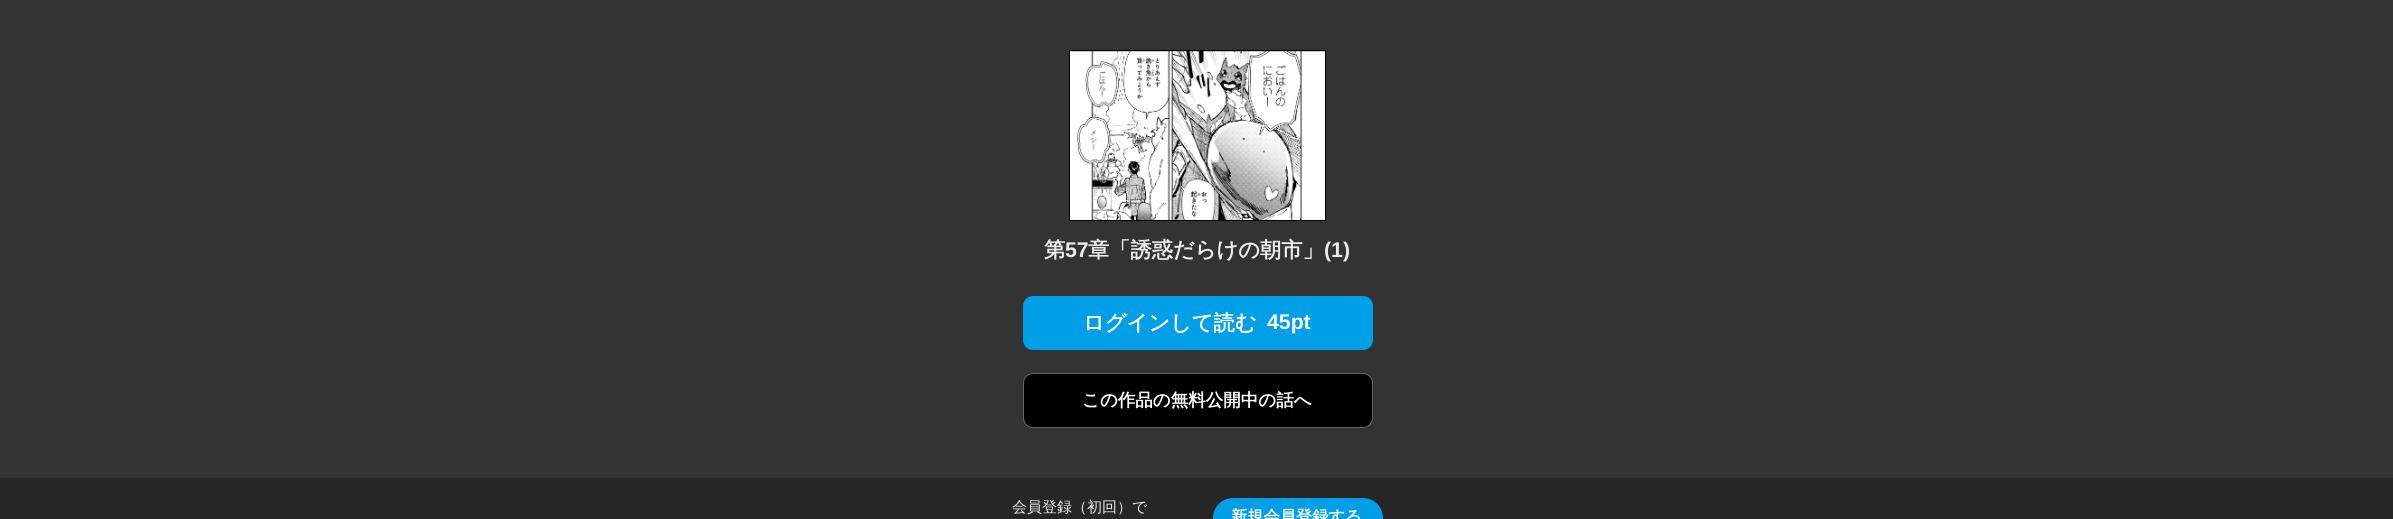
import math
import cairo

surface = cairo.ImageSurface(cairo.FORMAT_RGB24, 2393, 519)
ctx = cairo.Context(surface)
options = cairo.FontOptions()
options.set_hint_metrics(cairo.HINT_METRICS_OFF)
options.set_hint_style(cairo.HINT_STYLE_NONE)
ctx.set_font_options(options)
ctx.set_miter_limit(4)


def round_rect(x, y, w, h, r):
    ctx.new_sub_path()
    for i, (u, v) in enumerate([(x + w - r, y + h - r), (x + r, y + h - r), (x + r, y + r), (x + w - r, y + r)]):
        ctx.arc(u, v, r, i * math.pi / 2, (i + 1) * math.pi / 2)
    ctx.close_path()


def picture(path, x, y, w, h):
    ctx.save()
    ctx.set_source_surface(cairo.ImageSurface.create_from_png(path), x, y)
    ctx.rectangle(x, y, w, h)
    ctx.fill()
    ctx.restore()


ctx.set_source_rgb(0.2, 0.2, 0.2)
ctx.paint()
ctx.rectangle(1069.5, 50.5, 256, 170)
ctx.set_source_rgb(0, 0, 0)
ctx.set_line_width(1)
ctx.stroke()
picture("img1.png", 1070, 51, 255, 169)
ctx.select_font_face("WenQuanYi Zen Hei", cairo.FONT_SLANT_NORMAL, cairo.FONT_WEIGHT_BOLD)
ctx.set_font_size(21.25)
ctx.set_source_rgb(0.918, 0.918, 0.918)
ctx.move_to(1044, 257)
ctx.show_text("第")
ctx.select_font_face("Liberation Sans", cairo.FONT_SLANT_NORMAL, cairo.FONT_WEIGHT_BOLD)
ctx.move_to(1065, 257)
ctx.show_text("57")
ctx.select_font_face("WenQuanYi Zen Hei", cairo.FONT_SLANT_NORMAL, cairo.FONT_WEIGHT_BOLD)
ctx.move_to(1088, 257)
ctx.show_text("章「誘惑だらけの朝市」")
ctx.select_font_face("Liberation Sans", cairo.FONT_SLANT_NORMAL, cairo.FONT_WEIGHT_BOLD)
ctx.move_to(1324, 257)
ctx.show_text("(1)")
ctx.set_source_rgb(0, 0.624, 0.91)
round_rect(1023, 296, 350, 54, 10)
ctx.fill()
ctx.select_font_face("WenQuanYi Zen Hei", cairo.FONT_SLANT_NORMAL, cairo.FONT_WEIGHT_BOLD)
ctx.set_source_rgb(1, 1, 1)
ctx.move_to(1083, 330)
ctx.show_text("ログインして読む")
ctx.select_font_face("Liberation Sans", cairo.FONT_SLANT_NORMAL, cairo.FONT_WEIGHT_BOLD)
ctx.move_to(1267, 329)
ctx.show_text("45pt")
ctx.set_source_rgb(0, 0, 0)
round_rect(1023.5, 373.5, 349, 54, 9.5)
ctx.fill_preserve()
ctx.set_source_rgb(0.4, 0.4, 0.4)
ctx.stroke()
ctx.select_font_face("WenQuanYi Zen Hei", cairo.FONT_SLANT_NORMAL, cairo.FONT_WEIGHT_BOLD)
ctx.set_font_size(17.5)
ctx.set_source_rgb(1, 1, 1)
ctx.move_to(1082, 406)
ctx.show_text("この作品の無料公開中の話へ")
ctx.set_source_rgb(0.149, 0.149, 0.149)
ctx.rectangle(0, 478, 2393, 41)
ctx.fill()
ctx.select_font_face("WenQuanYi Zen Hei Medium")
ctx.set_font_size(15)
ctx.set_source_rgb(0.918, 0.918, 0.918)
ctx.move_to(1012, 512)
ctx.show_text("会員登録（初回）で")
ctx.set_source_rgb(0, 0.624, 0.91)
round_rect(1213, 498, 170, 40, 20)
ctx.fill()
ctx.select_font_face("WenQuanYi Zen Hei", cairo.FONT_SLANT_NORMAL, cairo.FONT_WEIGHT_BOLD)
ctx.set_font_size(16.25)
ctx.set_source_rgb(1, 1, 1)
ctx.move_to(1231, 522)
ctx.show_text("新規会員登録する")
surface.write_to_png("page.png")
